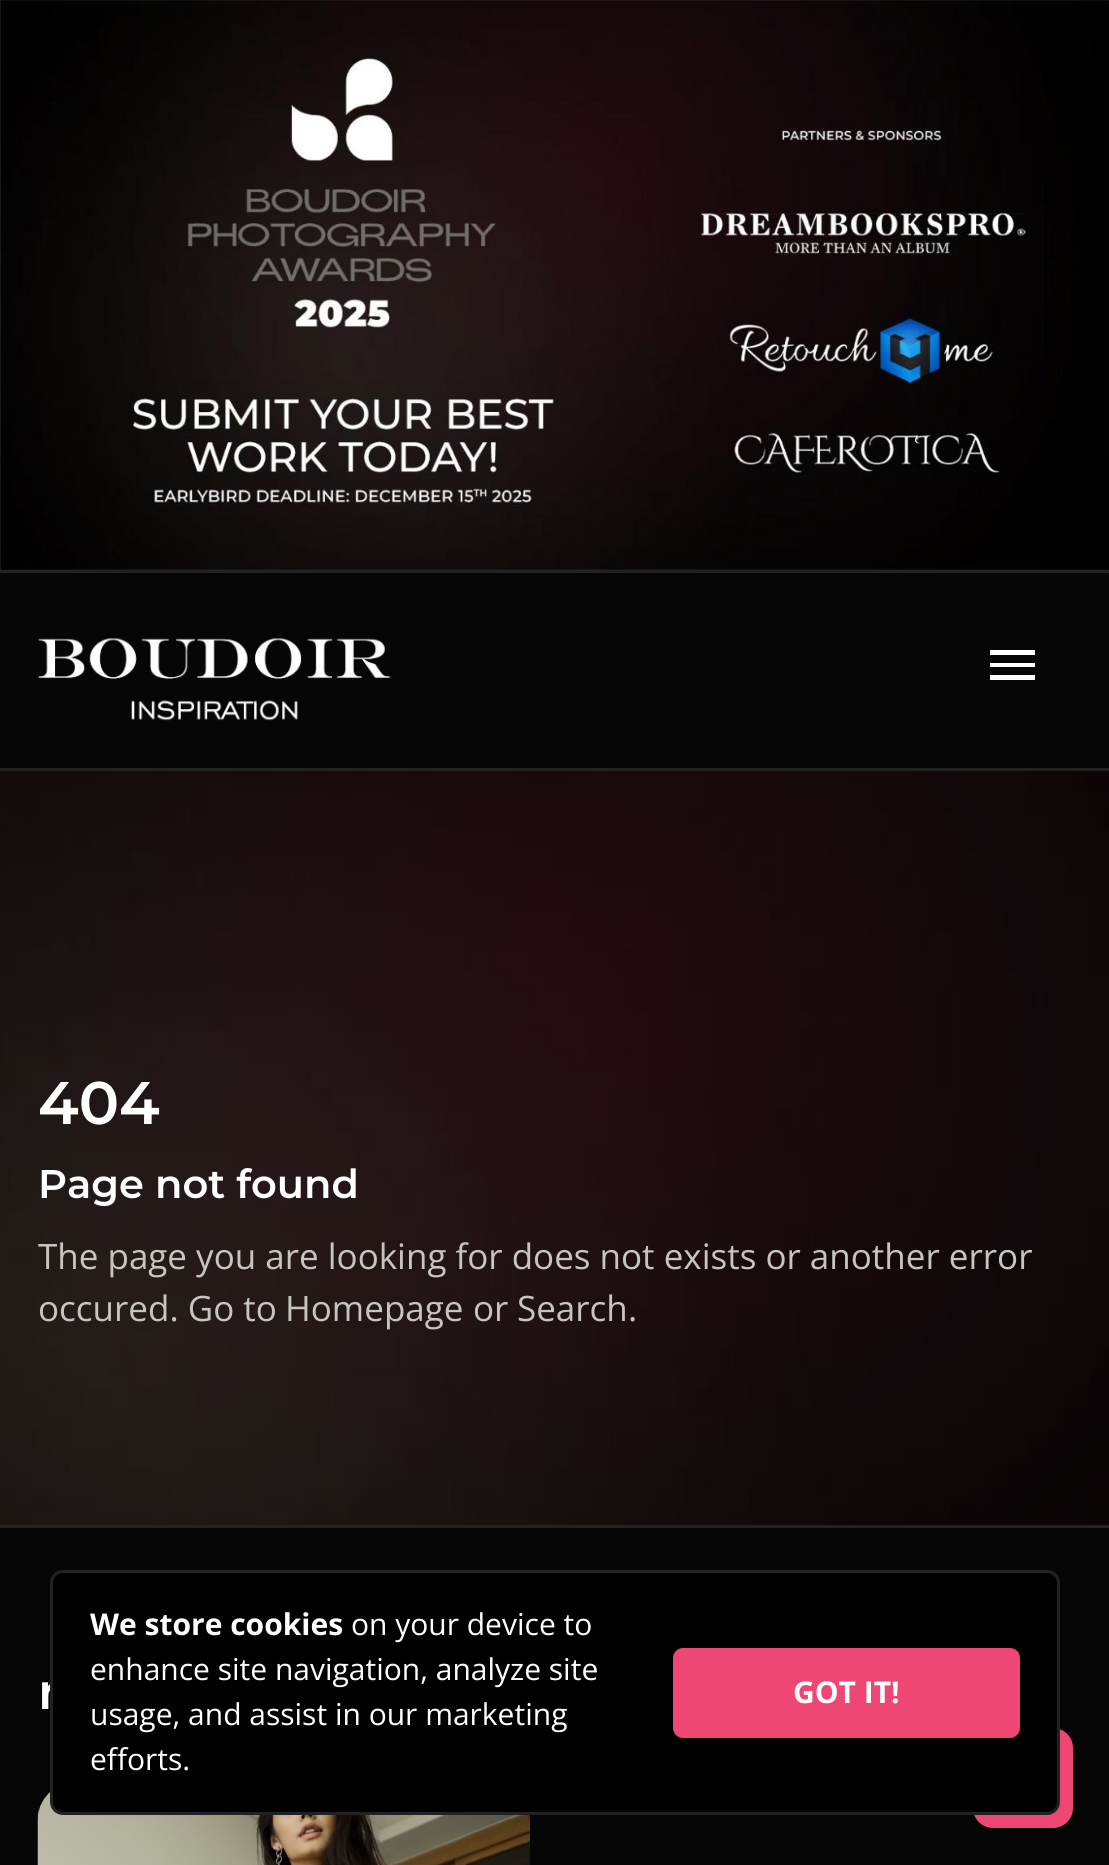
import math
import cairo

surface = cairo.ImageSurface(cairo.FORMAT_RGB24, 1109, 1865)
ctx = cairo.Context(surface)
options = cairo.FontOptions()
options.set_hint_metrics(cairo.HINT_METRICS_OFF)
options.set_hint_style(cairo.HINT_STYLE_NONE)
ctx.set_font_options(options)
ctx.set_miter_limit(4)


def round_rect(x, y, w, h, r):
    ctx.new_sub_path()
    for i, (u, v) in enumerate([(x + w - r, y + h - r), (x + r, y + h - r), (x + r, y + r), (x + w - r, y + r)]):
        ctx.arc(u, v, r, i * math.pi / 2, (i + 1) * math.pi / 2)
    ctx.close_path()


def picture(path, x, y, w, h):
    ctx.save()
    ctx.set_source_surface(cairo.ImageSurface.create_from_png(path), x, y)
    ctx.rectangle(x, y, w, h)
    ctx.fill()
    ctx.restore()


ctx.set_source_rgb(0.027, 0.027, 0.027)
ctx.paint()
ctx.set_source_rgb(0.133, 0.133, 0.133)
ctx.rectangle(0, 570, 1109, 3)
ctx.fill()
picture("img1.png", 0, 0, 1109, 570)
ctx.rectangle(0, 768, 1109, 3)
ctx.fill()
picture("img2.png", 38, 637, 353, 84)
ctx.set_source_rgb(1, 1, 1)
ctx.new_path()
ctx.move_to(990, 650)
ctx.line_to(1035, 650)
ctx.line_to(1035, 655)
ctx.line_to(990, 655)
ctx.close_path()
ctx.move_to(990, 667)
ctx.line_to(990, 663)
ctx.line_to(1035, 663)
ctx.line_to(1035, 667)
ctx.close_path()
ctx.move_to(990, 680)
ctx.line_to(990, 675)
ctx.line_to(1035, 675)
ctx.line_to(1035, 680)
ctx.close_path()
ctx.fill()
picture("img3.png", 0, 771, 1109, 754)
ctx.set_source_rgb(0.133, 0.133, 0.133)
ctx.rectangle(0, 1525, 1109, 3)
ctx.fill()
ctx.select_font_face("Montserrat Thin")
ctx.set_font_size(60)
ctx.set_source_rgb(1, 1, 1)
ctx.move_to(38, 1124)
ctx.show_text("404")
ctx.set_font_size(40)
ctx.move_to(38, 1198)
ctx.show_text("Page not found")
ctx.select_font_face("Open Sans")
ctx.set_font_size(35)
ctx.set_source_rgb(0.78, 0.769, 0.769)
ctx.move_to(38, 1269)
ctx.show_text("The page you are looking for does not exists or another error")
ctx.move_to(38, 1321)
ctx.show_text("occured. Go to")
ctx.move_to(285, 1321)
ctx.show_text("Homepage")
ctx.move_to(473, 1321)
ctx.show_text("or")
ctx.move_to(517, 1321)
ctx.show_text("Search")
ctx.move_to(628, 1321)
ctx.show_text(".")
ctx.select_font_face("Montserrat Thin")
ctx.set_font_size(50)
ctx.set_source_rgb(1, 1, 1)
ctx.move_to(38, 1709)
ctx.show_text("r")
picture("img4.png", 37, 1792, 493, 73)
ctx.set_source_rgb(0.933, 0.278, 0.455)
round_rect(973, 1728, 100, 100, 20)
ctx.fill()
ctx.set_source_rgb(0, 0, 0)
round_rect(51.5, 1571.5, 1007, 242, 11.5)
ctx.fill_preserve()
ctx.set_source_rgb(0.133, 0.133, 0.133)
ctx.set_line_width(3)
ctx.stroke()
ctx.select_font_face("Open Sans", cairo.FONT_SLANT_NORMAL, cairo.FONT_WEIGHT_BOLD)
ctx.set_font_size(30)
ctx.set_source_rgb(1, 1, 1)
ctx.move_to(90, 1635)
ctx.show_text("We store cookies")
ctx.select_font_face("Open Sans")
ctx.move_to(351, 1635)
ctx.show_text("on your device to")
ctx.move_to(90, 1680)
ctx.show_text("enhance site navigation, analyze site")
ctx.move_to(90, 1725)
ctx.show_text("usage, and assist in our marketing")
ctx.move_to(90, 1770)
ctx.show_text("efforts.")
ctx.set_source_rgb(0.933, 0.278, 0.455)
round_rect(673, 1648, 347, 90, 10)
ctx.fill()
ctx.select_font_face("Open Sans", cairo.FONT_SLANT_NORMAL, cairo.FONT_WEIGHT_BOLD)
ctx.set_source_rgb(1, 1, 1)
ctx.move_to(793, 1703)
ctx.show_text("GOT IT!")
surface.write_to_png("page.png")
